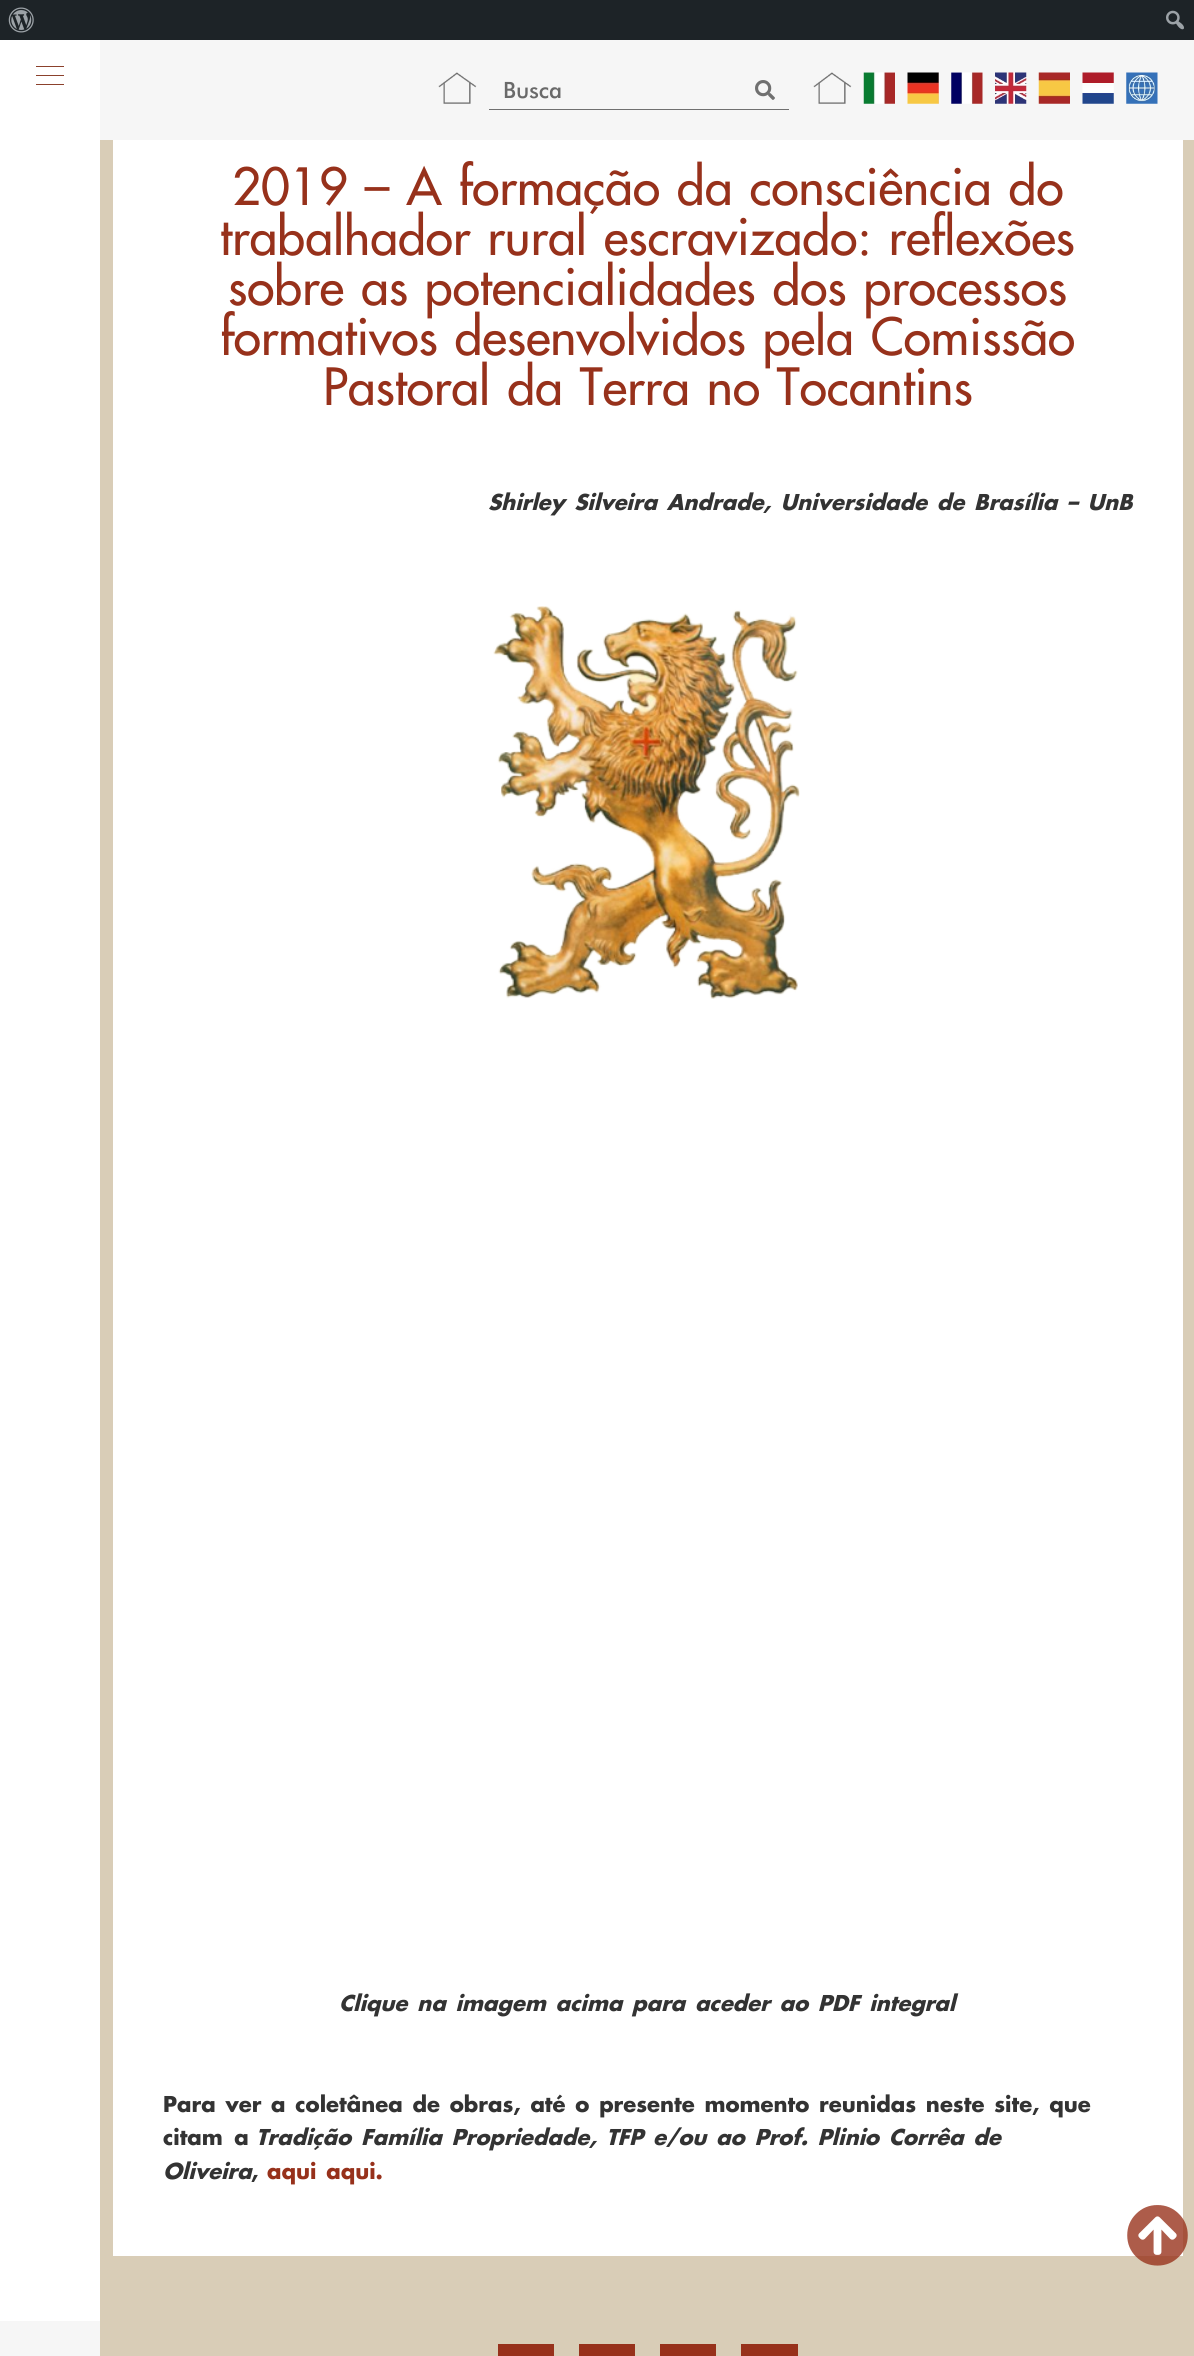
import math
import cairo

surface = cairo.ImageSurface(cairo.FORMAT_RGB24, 1194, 2356)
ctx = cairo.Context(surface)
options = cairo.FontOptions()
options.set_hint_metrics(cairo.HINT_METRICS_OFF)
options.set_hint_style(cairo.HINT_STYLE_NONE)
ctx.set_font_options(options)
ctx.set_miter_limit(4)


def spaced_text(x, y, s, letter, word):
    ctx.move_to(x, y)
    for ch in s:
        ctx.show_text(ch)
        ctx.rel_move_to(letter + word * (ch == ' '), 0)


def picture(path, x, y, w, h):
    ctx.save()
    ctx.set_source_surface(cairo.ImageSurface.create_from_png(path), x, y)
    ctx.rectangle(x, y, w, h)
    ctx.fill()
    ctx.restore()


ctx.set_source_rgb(0.851, 0.804, 0.718)
ctx.paint()
ctx.set_source_rgb(0.114, 0.137, 0.153)
ctx.rectangle(0, 0, 1194, 40)
ctx.fill()
picture("img1.png", 8, 7, 26, 26)
picture("img2.png", 1166, 10, 18, 20)
ctx.set_source_rgb(1, 1, 1)
ctx.rectangle(0, 40, 100, 2281)
ctx.fill()
ctx.set_source_rgb(0.545, 0.255, 0.173)
ctx.rectangle(36, 66, 28, 1)
ctx.fill()
ctx.rectangle(36, 84, 28, 1)
ctx.fill()
ctx.rectangle(36, 75, 28, 1)
ctx.fill()
ctx.set_source_rgb(0.961, 0.961, 0.961)
ctx.rectangle(0, 2321, 100, 35)
ctx.fill()
ctx.rectangle(100, 40, 1094, 100)
ctx.fill()
picture("img3.png", 438, 72, 39, 32)
ctx.set_source_rgb(0.439, 0.439, 0.439)
ctx.rectangle(489, 109, 300, 1)
ctx.fill()
ctx.select_font_face("Futura Medium")
ctx.set_font_size(22.5)
ctx.set_source_rgb(0.416, 0.416, 0.416)
ctx.move_to(503, 98)
ctx.show_text("Busca")
picture("img4.png", 755, 80, 20, 20)
picture("img5.png", 813, 72, 39, 32)
picture("img6.png", 863, 72, 32, 32)
picture("img7.png", 907, 72, 32, 32)
picture("img8.png", 951, 72, 32, 32)
picture("img9.png", 995, 72, 32, 32)
picture("img10.png", 1038, 72, 32, 32)
picture("img11.png", 1082, 72, 32, 32)
picture("img12.png", 1126, 72, 32, 32)
ctx.set_source_rgb(1, 1, 1)
ctx.rectangle(113, 140, 1070, 2116)
ctx.fill()
picture("img13.png", 1127, 2205, 61, 61)
ctx.select_font_face("Futura")
ctx.set_font_size(50)
ctx.set_source_rgb(0.592, 0.192, 0.106)
spaced_text(232, 205, "2019 – A formação da consciência do", 0, 2.5)
spaced_text(220, 255, "trabalhador rural escravizado: reflexões", 0, 2.5)
spaced_text(228, 305, "sobre as potencialidades dos processos", 0, 2.5)
spaced_text(220, 355, "formativos desenvolvidos pela Comissão", 0, 2.5)
spaced_text(323, 405, "Pastoral da Terra no Tocantins", 0, 2.5)
ctx.select_font_face("Futura", cairo.FONT_SLANT_ITALIC, cairo.FONT_WEIGHT_BOLD)
ctx.set_font_size(21.25)
ctx.set_source_rgb(0.2, 0.2, 0.2)
spaced_text(488, 510, "Shirley Silveira Andrade, Universidade de Brasília – UnB", 0, 2.5)
picture("img14.png", 493, 606, 307, 393)
spaced_text(339, 2011, "Clique na imagem acima para aceder ao PDF integral", 0, 2.5)
ctx.select_font_face("Futura", cairo.FONT_SLANT_NORMAL, cairo.FONT_WEIGHT_BOLD)
spaced_text(163, 2112, "Para ver a coletânea de obras, até o presente momento reunidas neste site, que", 0, 2.5)
spaced_text(163, 2145, "citam a", 0, 4)
ctx.select_font_face("Futura", cairo.FONT_SLANT_ITALIC, cairo.FONT_WEIGHT_BOLD)
spaced_text(256, 2145, "Tradição Família Propriedade, TFP e/ou ao Prof. Plinio Corrêa de", 0, 2.5)
ctx.move_to(163, 2179)
ctx.show_text("Oliveira")
ctx.select_font_face("Futura", cairo.FONT_SLANT_NORMAL, cairo.FONT_WEIGHT_BOLD)
ctx.move_to(251, 2179)
ctx.show_text(",")
ctx.set_source_rgb(0.592, 0.192, 0.106)
spaced_text(267, 2179, "aqui aqui.", 0, 2.5)
ctx.rectangle(498, 2344, 56, 12)
ctx.fill()
ctx.rectangle(579, 2344, 56, 12)
ctx.fill()
ctx.rectangle(660, 2344, 56, 12)
ctx.fill()
ctx.rectangle(741, 2344, 57, 12)
ctx.fill()
surface.write_to_png("page.png")
